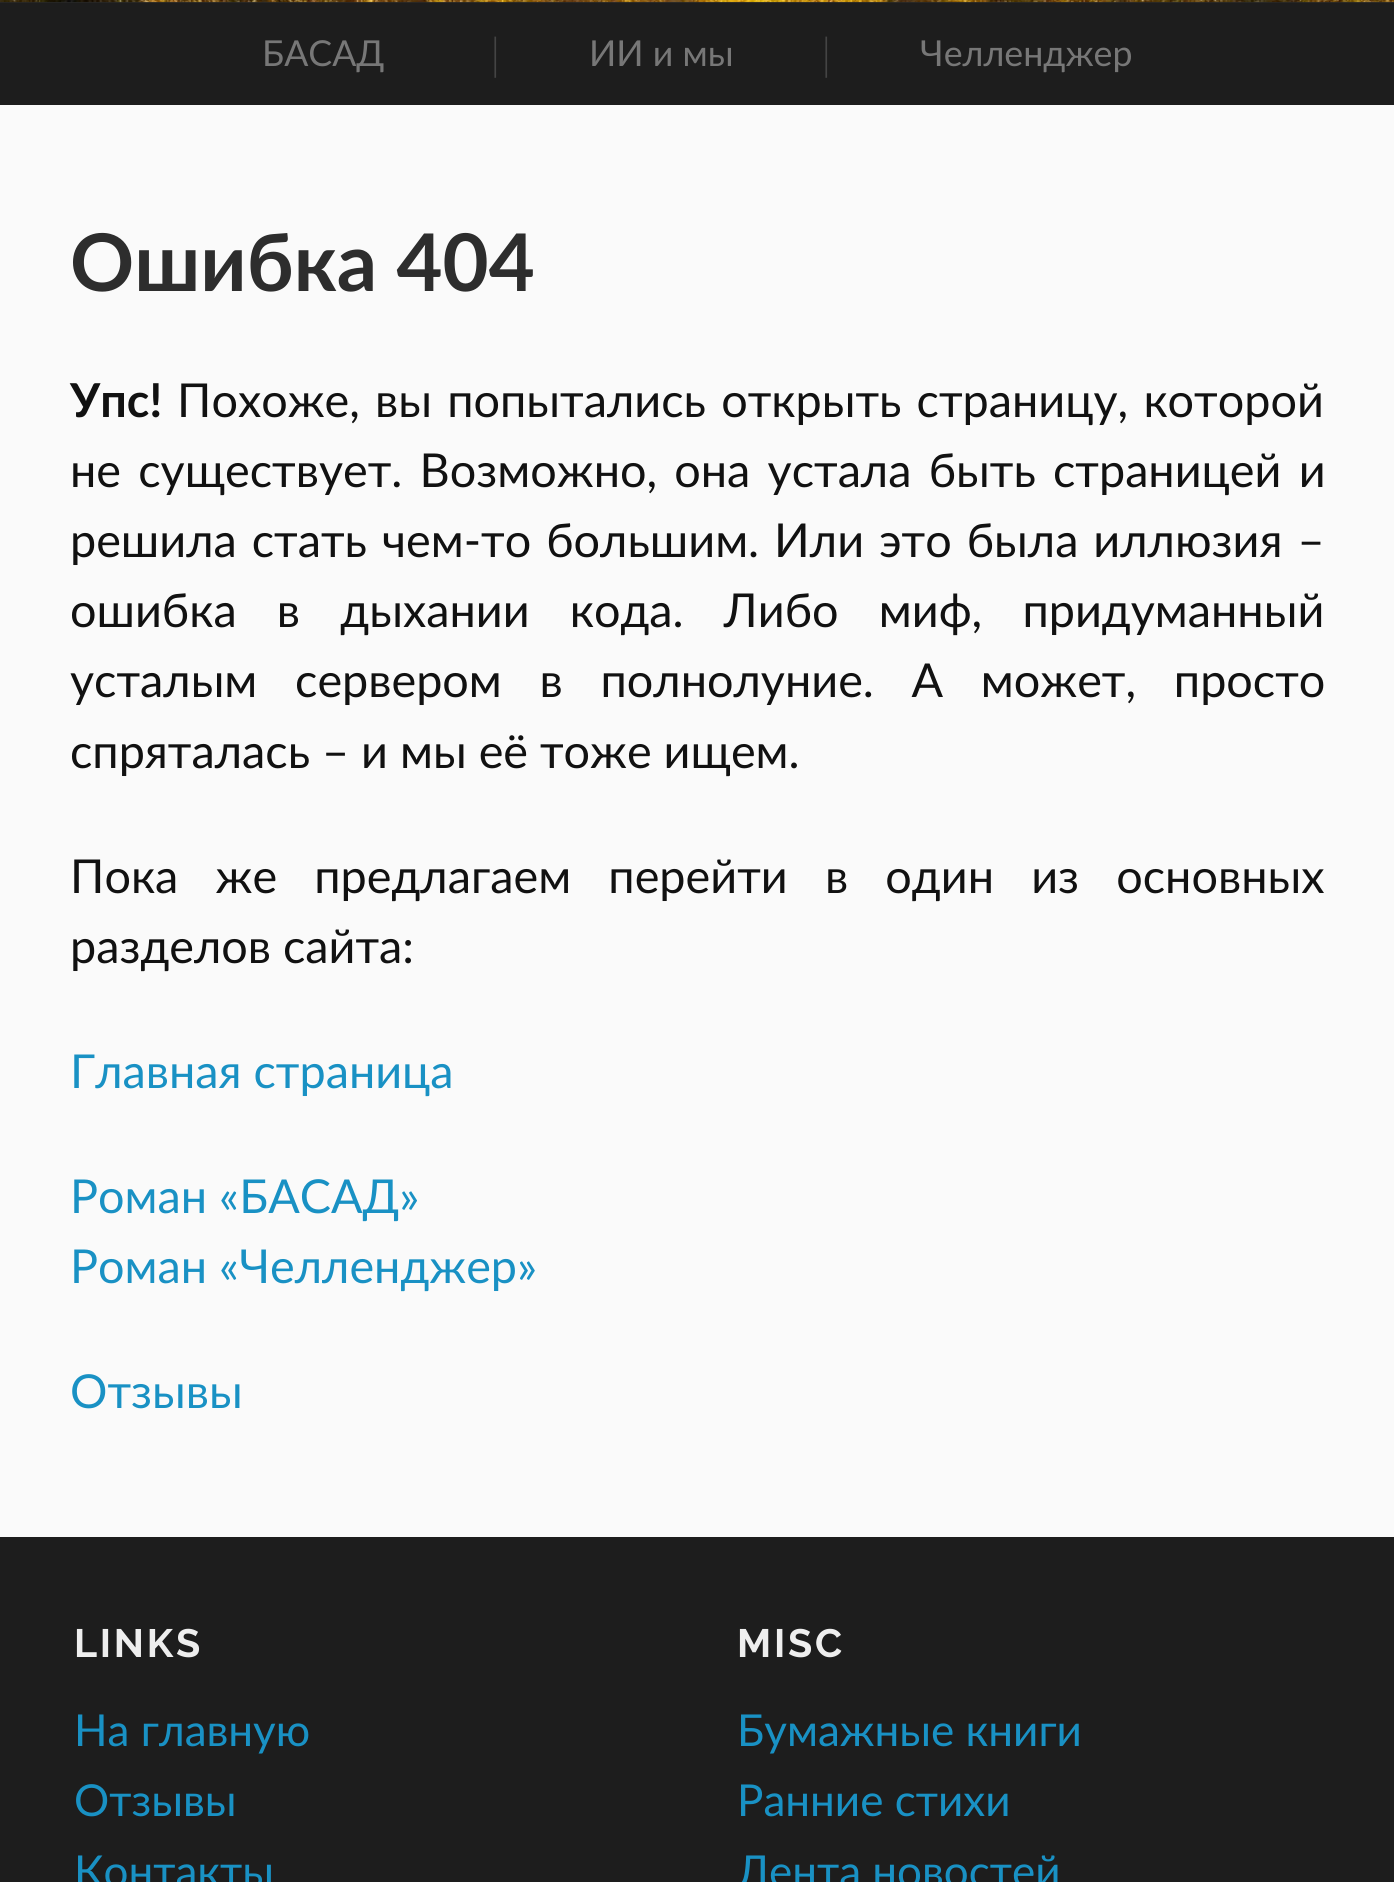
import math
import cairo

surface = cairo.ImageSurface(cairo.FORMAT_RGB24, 1394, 1882)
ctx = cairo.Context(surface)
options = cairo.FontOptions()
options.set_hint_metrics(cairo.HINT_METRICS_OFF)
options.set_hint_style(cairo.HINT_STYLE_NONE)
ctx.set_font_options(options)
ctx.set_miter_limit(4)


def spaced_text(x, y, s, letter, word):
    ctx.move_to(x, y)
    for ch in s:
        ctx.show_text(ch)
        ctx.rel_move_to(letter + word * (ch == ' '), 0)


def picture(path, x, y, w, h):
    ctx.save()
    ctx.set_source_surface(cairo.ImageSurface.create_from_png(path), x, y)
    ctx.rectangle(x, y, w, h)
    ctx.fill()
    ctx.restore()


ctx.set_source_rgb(0.98, 0.98, 0.98)
ctx.paint()
ctx.set_source_rgb(0.149, 0.149, 0.149)
ctx.rectangle(0, 2, 1394, 1)
ctx.fill()
picture("img1.png", 0, 0, 1394, 3)
ctx.set_source_rgb(0.114, 0.114, 0.114)
ctx.rectangle(0, 3, 1394, 102)
ctx.fill()
ctx.select_font_face("Lato")
ctx.set_font_size(35.75)
ctx.set_source_rgb(0.467, 0.467, 0.467)
ctx.move_to(262, 66)
ctx.show_text("БАСАД")
ctx.select_font_face("Lato Light")
ctx.set_font_size(44)
ctx.set_source_rgb(0.267, 0.267, 0.267)
ctx.move_to(490, 70)
ctx.show_text("|")
ctx.select_font_face("Lato")
ctx.set_font_size(35.75)
ctx.set_source_rgb(0.467, 0.467, 0.467)
ctx.move_to(589, 66)
ctx.show_text("ИИ и мы")
ctx.select_font_face("Lato Light")
ctx.set_font_size(44)
ctx.set_source_rgb(0.267, 0.267, 0.267)
ctx.move_to(821, 70)
ctx.show_text("|")
ctx.select_font_face("Lato")
ctx.set_font_size(35.75)
ctx.set_source_rgb(0.467, 0.467, 0.467)
ctx.move_to(920, 66)
ctx.show_text("Челленджер")
ctx.select_font_face("Lato", cairo.FONT_SLANT_NORMAL, cairo.FONT_WEIGHT_BOLD)
ctx.set_font_size(79.5)
ctx.set_source_rgb(0.176, 0.176, 0.176)
ctx.move_to(70, 291)
ctx.show_text("Ошибка 404")
ctx.set_font_size(46.75)
ctx.set_source_rgb(0.067, 0.067, 0.067)
ctx.move_to(70, 417)
ctx.show_text("Упс!")
ctx.select_font_face("Lato")
spaced_text(177, 417, "Похоже, вы попытались открыть страницу, которой", 0, 3.25)
spaced_text(70, 487, "не существует. Возможно, она устала быть страницей и", 0, 5.25)
spaced_text(70, 557, "решила стать чем-то большим. Или это была иллюзия –", 0, 3)
spaced_text(70, 627, "ошибка в дыхании кода. Либо миф, придуманный", 0, 28.25)
spaced_text(70, 697, "усталым сервером в полнолуние. А может, просто", 0, 25.75)
ctx.move_to(70, 768)
ctx.show_text("спряталась – и мы её тоже ищем.")
spaced_text(70, 893, "Пока же предлагаем перейти в один из основных", 0, 25.25)
ctx.move_to(70, 963)
ctx.show_text("разделов сайта:")
ctx.set_source_rgb(0.098, 0.569, 0.769)
ctx.move_to(70, 1088)
ctx.show_text("Главная страница")
ctx.move_to(70, 1213)
ctx.show_text("Роман «БАСАД»")
ctx.move_to(70, 1283)
ctx.show_text("Роман «Челленджер»")
ctx.move_to(70, 1408)
ctx.show_text("Отзывы")
ctx.set_source_rgb(0.114, 0.114, 0.114)
ctx.rectangle(0, 1537, 1394, 345)
ctx.fill()
ctx.select_font_face("Raleway", cairo.FONT_SLANT_NORMAL, cairo.FONT_WEIGHT_BOLD)
ctx.set_font_size(39.5)
ctx.set_source_rgb(0.933, 0.933, 0.933)
spaced_text(74, 1657, "LINKS", 2.75, 0)
ctx.select_font_face("Lato")
ctx.set_font_size(44)
ctx.set_source_rgb(0.098, 0.569, 0.769)
ctx.move_to(74, 1746)
ctx.show_text("На главную")
ctx.move_to(74, 1816)
ctx.show_text("Отзывы")
ctx.move_to(74, 1887)
ctx.show_text("Контакты")
ctx.select_font_face("Raleway", cairo.FONT_SLANT_NORMAL, cairo.FONT_WEIGHT_BOLD)
ctx.set_font_size(39.5)
ctx.set_source_rgb(0.933, 0.933, 0.933)
spaced_text(737, 1657, "MISC", 2.75, 0)
ctx.select_font_face("Lato")
ctx.set_font_size(44)
ctx.set_source_rgb(0.098, 0.569, 0.769)
ctx.move_to(737, 1746)
ctx.show_text("Бумажные книги")
ctx.move_to(737, 1816)
ctx.show_text("Ранние стихи")
ctx.move_to(737, 1887)
ctx.show_text("Лента новостей")
surface.write_to_png("page.png")
